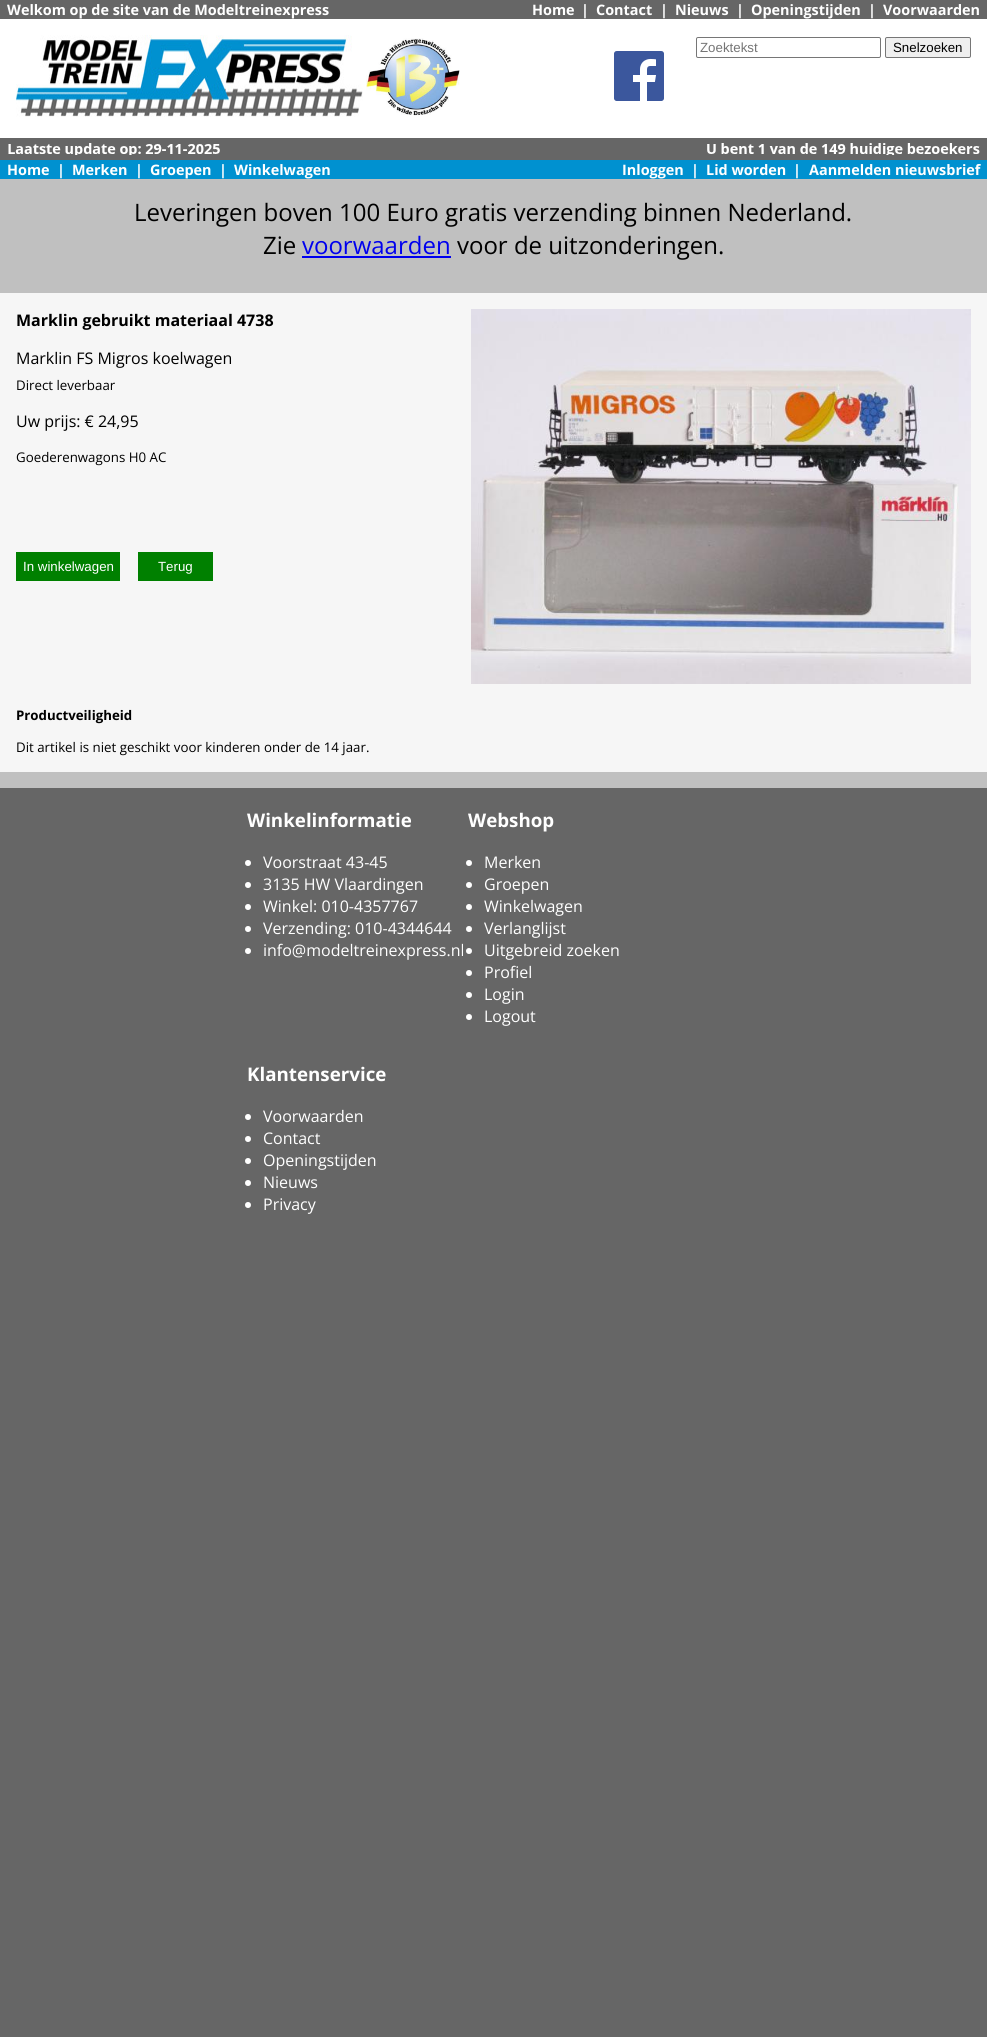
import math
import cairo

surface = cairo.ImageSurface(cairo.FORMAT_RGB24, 987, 2037)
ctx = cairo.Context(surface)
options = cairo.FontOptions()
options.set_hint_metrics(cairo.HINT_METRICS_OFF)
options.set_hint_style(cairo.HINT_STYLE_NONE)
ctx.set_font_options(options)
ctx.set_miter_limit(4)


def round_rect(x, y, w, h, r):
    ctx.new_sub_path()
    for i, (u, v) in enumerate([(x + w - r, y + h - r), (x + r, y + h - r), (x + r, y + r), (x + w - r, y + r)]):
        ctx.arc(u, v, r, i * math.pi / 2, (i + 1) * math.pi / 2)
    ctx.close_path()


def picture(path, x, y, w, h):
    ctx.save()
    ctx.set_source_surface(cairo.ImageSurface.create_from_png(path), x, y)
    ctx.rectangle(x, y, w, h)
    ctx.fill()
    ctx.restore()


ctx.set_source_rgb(0.4, 0.4, 0.4)
ctx.paint()
ctx.select_font_face("Open Sans", cairo.FONT_SLANT_NORMAL, cairo.FONT_WEIGHT_BOLD)
ctx.set_font_size(14.4)
ctx.set_source_rgb(1, 1, 1)
ctx.move_to(7, 15)
ctx.show_text("Welkom op de site van de Modeltreinexpress")
ctx.move_to(532, 15)
ctx.show_text("Home")
ctx.move_to(581, 15)
ctx.show_text("|")
ctx.move_to(596, 15)
ctx.show_text("Contact")
ctx.move_to(660, 15)
ctx.show_text("|")
ctx.move_to(675, 15)
ctx.show_text("Nieuws")
ctx.move_to(736, 15)
ctx.show_text("|")
ctx.move_to(751, 15)
ctx.show_text("Openingstijden")
ctx.move_to(868, 15)
ctx.show_text("|")
ctx.move_to(883, 15)
ctx.show_text("Voorwaarden")
ctx.rectangle(0, 19, 987, 119)
ctx.fill()
picture("img1.png", 16, 35, 347, 82)
picture("img2.png", 366, 38, 94, 78)
round_rect(696.5, 37.5, 184, 20, 1.5)
ctx.set_source_rgb(0.463, 0.463, 0.463)
ctx.set_line_width(1)
ctx.stroke()
ctx.select_font_face("Liberation Sans")
ctx.set_font_size(13.3)
ctx.set_source_rgb(0.459, 0.459, 0.459)
ctx.move_to(700, 52)
ctx.show_text("Zoektekst")
ctx.set_source_rgb(0.937, 0.937, 0.937)
round_rect(885.5, 37.5, 85, 20, 1.5)
ctx.fill_preserve()
ctx.set_source_rgb(0.463, 0.463, 0.463)
ctx.stroke()
ctx.set_source_rgb(0, 0, 0)
ctx.move_to(893, 52)
ctx.show_text("Snelzoeken")
picture("img3.png", 614, 51, 50, 50)
picture("img4.png", 8, 143, 972, 12)
ctx.set_source_rgb(0, 0.569, 0.816)
ctx.rectangle(0, 160, 987, 19)
ctx.fill()
ctx.select_font_face("Open Sans", cairo.FONT_SLANT_NORMAL, cairo.FONT_WEIGHT_BOLD)
ctx.set_font_size(14.4)
ctx.set_source_rgb(1, 1, 1)
ctx.move_to(7, 175)
ctx.show_text("Home")
ctx.move_to(57, 175)
ctx.show_text("|")
ctx.move_to(72, 175)
ctx.show_text("Merken")
ctx.move_to(135, 175)
ctx.show_text("|")
ctx.move_to(150, 175)
ctx.show_text("Groepen")
ctx.move_to(219, 175)
ctx.show_text("|")
ctx.move_to(234, 175)
ctx.show_text("Winkelwagen")
ctx.move_to(622, 175)
ctx.show_text("Inloggen")
ctx.move_to(691, 175)
ctx.show_text("|")
ctx.move_to(706, 175)
ctx.show_text("Lid worden")
ctx.move_to(793, 175)
ctx.show_text("|")
ctx.move_to(809, 175)
ctx.show_text("Aanmelden nieuwsbrief")
ctx.set_source_rgb(0.753, 0.753, 0.753)
ctx.rectangle(0, 179, 987, 609)
ctx.fill()
ctx.select_font_face("Open Sans")
ctx.set_font_size(24)
ctx.set_source_rgb(0, 0, 0)
ctx.move_to(134, 221)
ctx.show_text("Leveringen boven 100 Euro gratis verzending binnen Nederland.")
ctx.move_to(263, 254)
ctx.show_text("Zie")
ctx.set_source_rgb(0, 0, 0.933)
ctx.move_to(302, 254)
ctx.show_text("voorwaarden")
ctx.rectangle(302, 256, 149, 2)
ctx.fill()
ctx.set_source_rgb(0, 0, 0)
ctx.move_to(457, 254)
ctx.show_text("voor de uitzonderingen.")
ctx.set_source_rgb(0.961, 0.961, 0.961)
ctx.rectangle(0, 293, 987, 479)
ctx.fill()
ctx.select_font_face("Open Sans", cairo.FONT_SLANT_NORMAL, cairo.FONT_WEIGHT_BOLD)
ctx.set_font_size(16)
ctx.set_source_rgb(0, 0, 0)
ctx.move_to(16, 326)
ctx.show_text("Marklin gebruikt materiaal 4738")
picture("img5.png", 471, 309, 500, 375)
ctx.select_font_face("Open Sans")
ctx.move_to(16, 364)
ctx.show_text("Marklin FS Migros koelwagen")
ctx.set_font_size(13.3)
ctx.move_to(16, 390)
ctx.show_text("Direct leverbaar")
ctx.set_font_size(16)
ctx.move_to(16, 427)
ctx.show_text("Uw prijs: € 24,95")
ctx.set_font_size(13.3)
ctx.move_to(16, 462)
ctx.show_text("Goederenwagons H0 AC")
ctx.set_source_rgb(0, 0.502, 0)
ctx.rectangle(16, 552, 104, 29)
ctx.fill()
ctx.select_font_face("Liberation Sans")
ctx.set_source_rgb(1, 1, 1)
ctx.move_to(23, 571)
ctx.show_text("In winkelwagen")
ctx.set_source_rgb(0, 0.502, 0)
ctx.rectangle(138, 552, 75, 29)
ctx.fill()
ctx.set_source_rgb(1, 1, 1)
ctx.move_to(158, 571)
ctx.show_text("Terug")
ctx.select_font_face("Open Sans", cairo.FONT_SLANT_NORMAL, cairo.FONT_WEIGHT_BOLD)
ctx.set_font_size(13.25)
ctx.set_source_rgb(0, 0, 0)
ctx.move_to(16, 720)
ctx.show_text("Productveiligheid")
ctx.select_font_face("Open Sans")
ctx.set_font_size(13.3)
ctx.move_to(16, 752)
ctx.show_text("Dit artikel is niet geschikt voor kinderen onder de 14 jaar.")
ctx.select_font_face("Open Sans", cairo.FONT_SLANT_NORMAL, cairo.FONT_WEIGHT_BOLD)
ctx.set_font_size(18.75)
ctx.set_source_rgb(1, 1, 1)
ctx.move_to(247, 827)
ctx.show_text("Winkelinformatie")
ctx.new_path()
ctx.arc(248, 863, 3, 0, 2 * math.pi)
ctx.fill()
ctx.select_font_face("Open Sans")
ctx.set_font_size(16)
ctx.move_to(263, 868)
ctx.show_text("Voorstraat 43-45")
ctx.new_path()
ctx.arc(248, 885, 3, 0, 2 * math.pi)
ctx.fill()
ctx.move_to(263, 890)
ctx.show_text("3135 HW Vlaardingen")
ctx.new_path()
ctx.arc(248, 907, 3, 0, 2 * math.pi)
ctx.fill()
ctx.move_to(263, 912)
ctx.show_text("Winkel: 010-4357767")
ctx.new_path()
ctx.arc(248, 929, 3, 0, 2 * math.pi)
ctx.fill()
ctx.move_to(263, 934)
ctx.show_text("Verzending: 010-4344644")
ctx.new_path()
ctx.arc(248, 951, 3, 0, 2 * math.pi)
ctx.fill()
ctx.move_to(263, 956)
ctx.show_text("info@modeltreinexpress.nl")
ctx.select_font_face("Open Sans", cairo.FONT_SLANT_NORMAL, cairo.FONT_WEIGHT_BOLD)
ctx.set_font_size(18.75)
ctx.move_to(468, 827)
ctx.show_text("Webshop")
ctx.new_path()
ctx.arc(469, 863, 3, 0, 2 * math.pi)
ctx.fill()
ctx.select_font_face("Open Sans")
ctx.set_font_size(16)
ctx.move_to(484, 868)
ctx.show_text("Merken")
ctx.new_path()
ctx.arc(469, 885, 3, 0, 2 * math.pi)
ctx.fill()
ctx.move_to(484, 890)
ctx.show_text("Groepen")
ctx.new_path()
ctx.arc(469, 907, 3, 0, 2 * math.pi)
ctx.fill()
ctx.move_to(484, 912)
ctx.show_text("Winkelwagen")
ctx.new_path()
ctx.arc(469, 929, 3, 0, 2 * math.pi)
ctx.fill()
ctx.move_to(484, 934)
ctx.show_text("Verlanglijst")
ctx.new_path()
ctx.arc(469, 951, 3, 0, 2 * math.pi)
ctx.fill()
ctx.move_to(484, 956)
ctx.show_text("Uitgebreid zoeken")
ctx.new_path()
ctx.arc(469, 973, 3, 0, 2 * math.pi)
ctx.fill()
ctx.move_to(484, 978)
ctx.show_text("Profiel")
ctx.new_path()
ctx.arc(469, 995, 3, 0, 2 * math.pi)
ctx.fill()
ctx.move_to(484, 1000)
ctx.show_text("Login")
ctx.new_path()
ctx.arc(469, 1017, 3, 0, 2 * math.pi)
ctx.fill()
ctx.move_to(484, 1022)
ctx.show_text("Logout")
ctx.select_font_face("Open Sans", cairo.FONT_SLANT_NORMAL, cairo.FONT_WEIGHT_BOLD)
ctx.set_font_size(18.75)
ctx.move_to(247, 1081)
ctx.show_text("Klantenservice")
ctx.new_path()
ctx.arc(248, 1117, 3, 0, 2 * math.pi)
ctx.fill()
ctx.select_font_face("Open Sans")
ctx.set_font_size(16)
ctx.move_to(263, 1122)
ctx.show_text("Voorwaarden")
ctx.new_path()
ctx.arc(248, 1139, 3, 0, 2 * math.pi)
ctx.fill()
ctx.move_to(263, 1144)
ctx.show_text("Contact")
ctx.new_path()
ctx.arc(248, 1161, 3, 0, 2 * math.pi)
ctx.fill()
ctx.move_to(263, 1166)
ctx.show_text("Openingstijden")
ctx.new_path()
ctx.arc(248, 1183, 3, 0, 2 * math.pi)
ctx.fill()
ctx.move_to(263, 1188)
ctx.show_text("Nieuws")
ctx.new_path()
ctx.arc(248, 1205, 3, 0, 2 * math.pi)
ctx.fill()
ctx.move_to(263, 1210)
ctx.show_text("Privacy")
surface.write_to_png("page.png")
